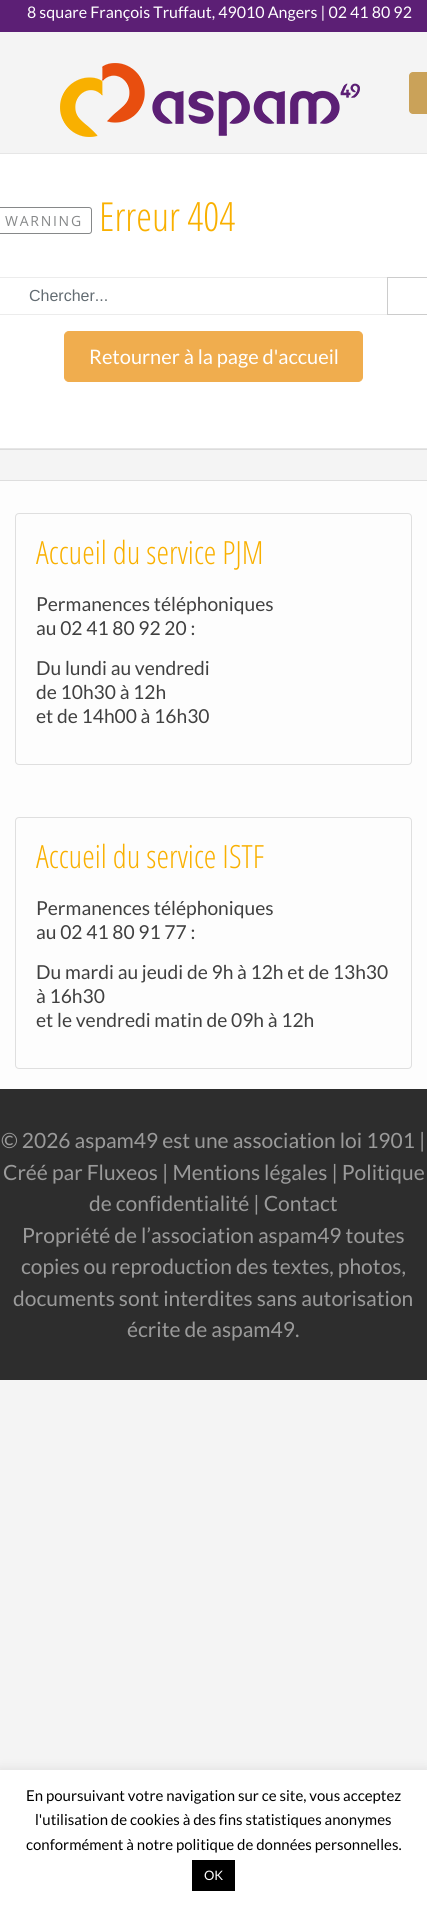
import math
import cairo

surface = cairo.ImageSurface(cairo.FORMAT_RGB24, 427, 1908)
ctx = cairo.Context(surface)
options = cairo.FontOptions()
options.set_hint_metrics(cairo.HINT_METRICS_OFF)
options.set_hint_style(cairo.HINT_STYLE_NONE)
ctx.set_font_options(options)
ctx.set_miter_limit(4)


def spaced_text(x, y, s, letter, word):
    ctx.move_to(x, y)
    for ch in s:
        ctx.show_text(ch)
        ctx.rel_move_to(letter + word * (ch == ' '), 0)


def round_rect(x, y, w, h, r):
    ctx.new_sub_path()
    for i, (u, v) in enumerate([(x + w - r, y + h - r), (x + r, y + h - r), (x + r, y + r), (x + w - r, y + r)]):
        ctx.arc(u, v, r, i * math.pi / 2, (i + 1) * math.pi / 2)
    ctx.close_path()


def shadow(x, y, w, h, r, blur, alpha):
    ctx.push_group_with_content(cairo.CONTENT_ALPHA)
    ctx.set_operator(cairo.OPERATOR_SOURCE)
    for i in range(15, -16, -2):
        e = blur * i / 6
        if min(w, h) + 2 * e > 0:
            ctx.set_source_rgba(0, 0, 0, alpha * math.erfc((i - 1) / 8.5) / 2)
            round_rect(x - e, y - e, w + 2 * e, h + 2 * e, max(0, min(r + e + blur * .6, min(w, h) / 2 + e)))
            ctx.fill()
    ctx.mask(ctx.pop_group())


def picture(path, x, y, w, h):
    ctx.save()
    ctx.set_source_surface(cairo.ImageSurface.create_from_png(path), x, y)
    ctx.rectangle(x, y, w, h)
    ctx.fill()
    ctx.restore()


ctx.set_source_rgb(0.957, 0.957, 0.957)
ctx.paint()
ctx.set_source_rgb(0.361, 0.122, 0.459)
ctx.rectangle(0, 0, 427, 32)
ctx.fill()
ctx.select_font_face("Lato")
ctx.set_font_size(16)
ctx.set_source_rgb(1, 1, 1)
ctx.move_to(27, 18)
ctx.show_text("8 square François Truffaut, 49010 Angers | 02 41 80 92")
picture("img1.png", 60, 63, 300, 74)
ctx.set_source_rgb(0.792, 0.635, 0.349)
round_rect(409, 72, 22, 42, 4)
ctx.fill()
ctx.set_source_rgb(0.863, 0.863, 0.863)
ctx.rectangle(0, 449, 427, 1)
ctx.fill()
ctx.set_source_rgb(1, 1, 1)
ctx.rectangle(-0.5, 153.5, 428, 295)
ctx.fill_preserve()
ctx.set_source_rgb(0.902, 0.902, 0.902)
ctx.set_line_width(1)
ctx.stroke()
round_rect(-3.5, 207.5, 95, 26, 2.5)
ctx.set_source_rgb(0.525, 0.533, 0.537)
ctx.stroke()
ctx.select_font_face("Open Sans")
ctx.set_font_size(14)
spaced_text(5, 226, "WARNING", 1.75, 0)
ctx.select_font_face("Open Sans Condensed Light")
ctx.set_font_size(40)
ctx.set_source_rgb(0.976, 0.69, 0)
ctx.move_to(99, 231)
ctx.show_text("Erreur 404")
ctx.rectangle(-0.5, 277.5, 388, 37)
ctx.set_source_rgb(0.925, 0.925, 0.925)
ctx.stroke()
ctx.select_font_face("Liberation Sans")
ctx.set_font_size(16)
ctx.set_source_rgb(0.388, 0.424, 0.447)
ctx.move_to(29, 301)
ctx.show_text("Chercher...")
ctx.rectangle(387.5, 277.5, 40, 37)
ctx.set_source_rgb(0.8, 0.8, 0.8)
ctx.stroke()
ctx.set_source_rgb(0.941, 0.678, 0.306)
round_rect(64.5, 331.5, 298, 50, 4.5)
ctx.fill_preserve()
ctx.stroke()
ctx.select_font_face("Lato")
ctx.set_font_size(20)
ctx.set_source_rgb(1, 1, 1)
ctx.move_to(89, 364)
ctx.show_text("Retourner à la page d'accueil")
ctx.set_source_rgb(0.992, 0.992, 0.992)
ctx.rectangle(0, 481, 427, 608)
ctx.fill()
ctx.set_source_rgb(0.871, 0.871, 0.871)
ctx.rectangle(0, 480, 427, 1)
ctx.fill()
round_rect(15.5, 513.5, 396, 251, 3.5)
ctx.set_source_rgb(0.875, 0.875, 0.875)
ctx.stroke()
ctx.select_font_face("Open Sans Condensed Light")
ctx.set_font_size(32)
ctx.set_source_rgb(0.976, 0.69, 0)
ctx.move_to(36, 564)
ctx.show_text("Accueil du service PJM")
ctx.select_font_face("Lato")
ctx.set_font_size(19.25)
ctx.set_source_rgb(0.251, 0.251, 0.251)
ctx.move_to(36, 611)
ctx.show_text("Permanences téléphoniques")
ctx.move_to(36, 635)
ctx.show_text("au 02 41 80 92 20 :")
ctx.move_to(36, 675)
ctx.show_text("Du lundi au vendredi")
ctx.move_to(36, 699)
ctx.show_text("de 10h30 à 12h")
ctx.move_to(36, 723)
ctx.show_text("et de 14h00 à 16h30")
round_rect(15.5, 817.5, 396, 251, 3.5)
ctx.set_source_rgb(0.875, 0.875, 0.875)
ctx.stroke()
ctx.select_font_face("Open Sans Condensed Light")
ctx.set_font_size(32)
ctx.set_source_rgb(0.976, 0.69, 0)
ctx.move_to(36, 868)
ctx.show_text("Accueil du service ISTF")
ctx.select_font_face("Lato")
ctx.set_font_size(19.25)
ctx.set_source_rgb(0.251, 0.251, 0.251)
ctx.move_to(36, 915)
ctx.show_text("Permanences téléphoniques")
ctx.move_to(36, 939)
ctx.show_text("au 02 41 80 91 77 :")
ctx.move_to(36, 979)
ctx.show_text("Du mardi au jeudi de 9h à 12h et de 13h30")
ctx.move_to(36, 1003)
ctx.show_text("à 16h30")
ctx.move_to(36, 1027)
ctx.show_text("et le vendredi matin de 09h à 12h")
ctx.set_source_rgb(0.176, 0.176, 0.176)
ctx.rectangle(0, 1089, 427, 291)
ctx.fill()
ctx.set_font_size(21)
ctx.set_source_rgb(0.604, 0.604, 0.604)
ctx.move_to(1, 1148)
ctx.show_text("© 2026 aspam49 est une association loi 1901 |")
ctx.move_to(3, 1180)
ctx.show_text("Créé par Fluxeos | Mentions légales | Politique")
ctx.move_to(89, 1211)
ctx.show_text("de confidentialité | Contact")
ctx.move_to(22, 1243)
ctx.show_text("Propriété de l’association aspam49 toutes")
ctx.move_to(21, 1274)
ctx.show_text("copies ou reproduction des textes, photos,")
ctx.move_to(13, 1306)
ctx.show_text("documents sont interdites sans autorisation")
ctx.move_to(127, 1337)
ctx.show_text("écrite de aspam49.")
ctx.set_source_rgb(0.675, 0.671, 0.671)
shadow(0, 1769, 427, 138, 0, 5, 0.3)
ctx.set_source_rgb(1, 1, 1)
ctx.rectangle(0, 1770, 427, 138)
ctx.fill()
ctx.set_font_size(15)
ctx.set_source_rgb(0, 0, 0)
ctx.move_to(26, 1801)
ctx.show_text("En poursuivant votre navigation sur ce site, vous acceptez")
ctx.move_to(35, 1825)
ctx.show_text("l'utilisation de cookies à des fins statistiques anonymes")
ctx.move_to(26, 1850)
ctx.show_text("conformément à notre politique de données personnelles.")
ctx.rectangle(192, 1860, 43, 31)
ctx.fill()
ctx.set_font_size(13)
ctx.set_source_rgb(1, 1, 1)
ctx.move_to(204, 1880)
ctx.show_text("OK")
surface.write_to_png("page.png")
